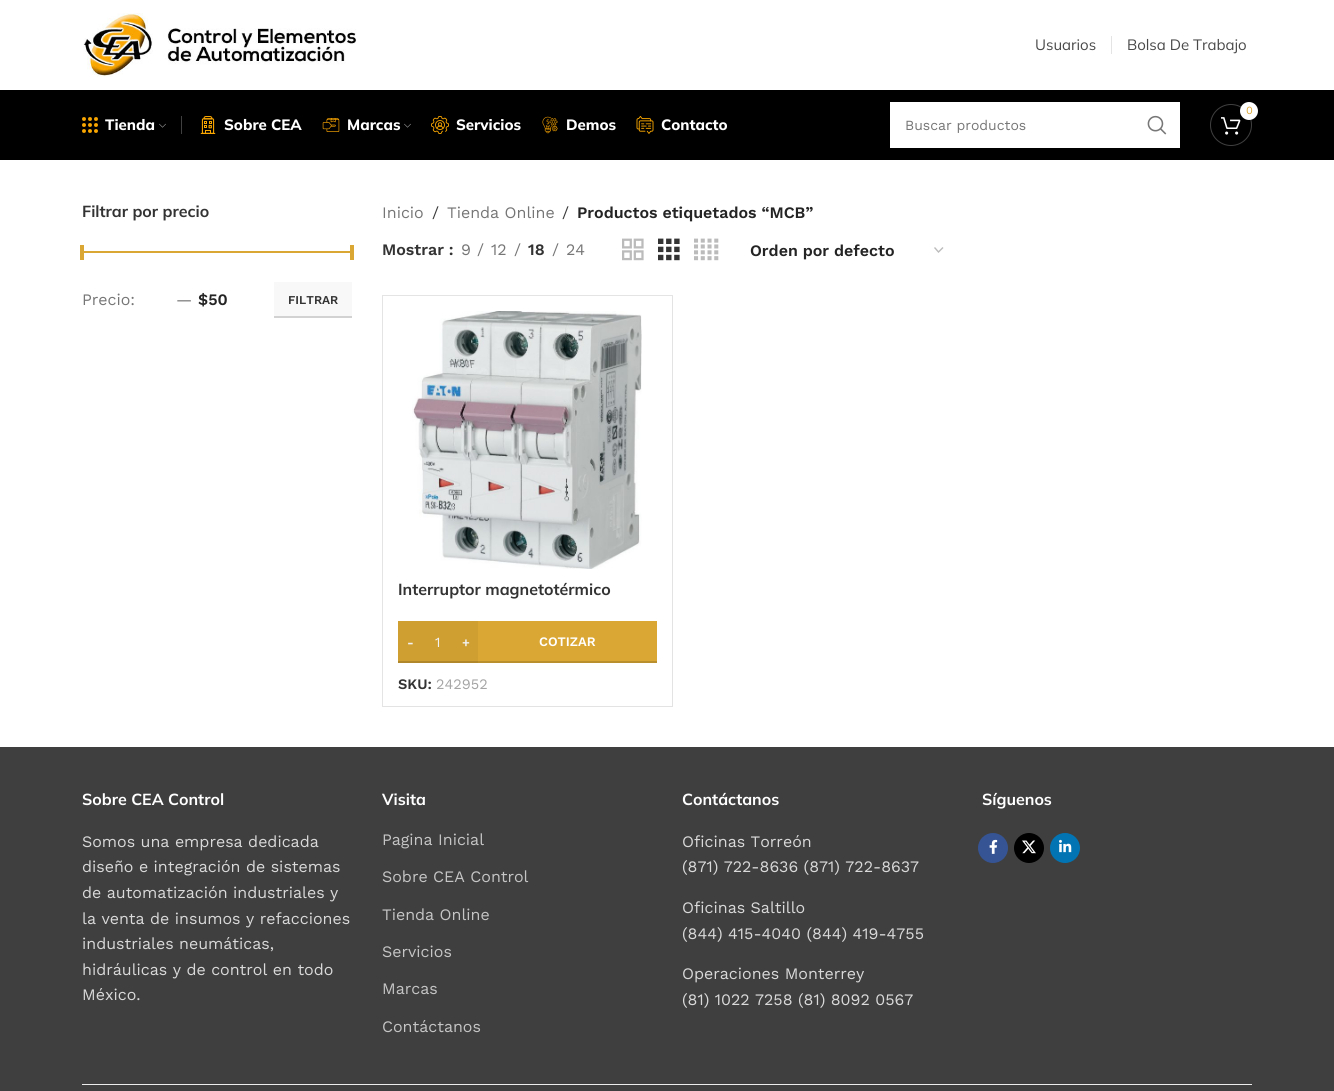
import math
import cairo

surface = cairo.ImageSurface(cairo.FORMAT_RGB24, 1334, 1091)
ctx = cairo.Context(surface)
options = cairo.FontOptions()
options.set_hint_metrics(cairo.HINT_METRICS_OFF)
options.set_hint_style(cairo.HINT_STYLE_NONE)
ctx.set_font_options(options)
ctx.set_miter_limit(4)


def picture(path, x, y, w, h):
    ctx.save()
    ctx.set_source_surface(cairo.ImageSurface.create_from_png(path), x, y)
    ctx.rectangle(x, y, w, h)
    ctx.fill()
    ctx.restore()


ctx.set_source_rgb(1, 1, 1)
ctx.paint()
picture("img1.png", 83, 13, 274, 64)
ctx.select_font_face("Mulish")
ctx.set_font_size(15)
ctx.set_source_rgb(0.286, 0.286, 0.286)
ctx.move_to(1035, 50)
ctx.show_text("Usuarios")
ctx.set_source_rgb(0.894, 0.894, 0.894)
ctx.rectangle(1111, 36, 1, 18)
ctx.fill()
ctx.set_source_rgb(0.286, 0.286, 0.286)
ctx.move_to(1127, 50)
ctx.show_text("Bolsa De Trabajo")
ctx.set_source_rgb(0, 0, 0)
ctx.rectangle(0, 90, 1334, 70)
ctx.fill()
picture("img2.png", 82, 117, 16, 16)
ctx.select_font_face("Mulish ExtraBold")
ctx.set_source_rgb(1, 1, 1)
ctx.move_to(105, 130)
ctx.show_text("Tienda")
picture("img3.png", 159, 123, 7, 5)
ctx.set_source_rgb(0.251, 0.251, 0.251)
ctx.rectangle(181, 116, 1, 18)
ctx.fill()
picture("img4.png", 200, 116, 16, 18)
ctx.set_source_rgb(1, 1, 1)
ctx.move_to(224, 130)
ctx.show_text("Sobre CEA")
picture("img5.png", 322, 118, 18, 14)
ctx.move_to(347, 130)
ctx.show_text("Marcas")
picture("img3.png", 404, 123, 7, 5)
picture("img6.png", 431, 116, 18, 18)
ctx.move_to(456, 130)
ctx.show_text("Servicios")
picture("img7.png", 542, 116, 16, 18)
ctx.move_to(566, 130)
ctx.show_text("Demos")
picture("img8.png", 636, 116, 18, 18)
ctx.move_to(661, 130)
ctx.show_text("Contacto")
ctx.new_path()
ctx.arc(1231, 125, 20.5, 0, 2 * math.pi)
ctx.set_source_rgb(0.251, 0.251, 0.251)
ctx.set_line_width(1)
ctx.stroke()
picture("img9.png", 1221, 117, 20, 18)
ctx.set_source_rgb(1, 1, 1)
ctx.arc(1249, 111, 9, 0, 2 * math.pi)
ctx.fill()
ctx.select_font_face("Work Sans")
ctx.set_font_size(11)
ctx.set_source_rgb(0.855, 0.655, 0.208)
ctx.move_to(1246, 114)
ctx.show_text("0")
ctx.set_source_rgb(1, 1, 1)
ctx.rectangle(890, 102, 290, 46)
ctx.fill()
ctx.set_font_size(14)
ctx.set_source_rgb(0.463, 0.463, 0.463)
ctx.move_to(905, 130)
ctx.show_text("Buscar productos")
picture("img10.png", 1147, 115, 20, 20)
ctx.select_font_face("Mulish", cairo.FONT_SLANT_NORMAL, cairo.FONT_WEIGHT_BOLD)
ctx.set_font_size(16)
ctx.set_source_rgb(0.2, 0.2, 0.2)
ctx.move_to(82, 217)
ctx.show_text("Filtrar por precio")
ctx.set_source_rgb(0.855, 0.655, 0.208)
ctx.rectangle(82, 251, 270, 2)
ctx.fill()
ctx.rectangle(80, 245, 4, 15)
ctx.fill()
ctx.rectangle(350, 245, 4, 15)
ctx.fill()
ctx.select_font_face("Work Sans")
ctx.set_source_rgb(0.463, 0.463, 0.463)
ctx.move_to(82, 305)
ctx.show_text("Precio:")
ctx.move_to(176, 305)
ctx.show_text("—")
ctx.select_font_face("Work Sans SemiBold")
ctx.set_source_rgb(0.141, 0.141, 0.141)
ctx.move_to(198, 305)
ctx.show_text("$50")
ctx.set_source_rgb(0.969, 0.969, 0.969)
ctx.rectangle(274, 282, 78, 34)
ctx.fill()
ctx.set_source_rgb(0.824, 0.824, 0.824)
ctx.rectangle(274, 316, 78, 2)
ctx.fill()
ctx.set_font_size(12)
ctx.set_source_rgb(0.2, 0.2, 0.2)
ctx.move_to(288, 304)
ctx.show_text("FILTRAR")
ctx.select_font_face("Work Sans")
ctx.set_font_size(16)
ctx.set_source_rgb(0.463, 0.463, 0.463)
ctx.move_to(382, 218)
ctx.show_text("Inicio")
ctx.set_source_rgb(0.227, 0.227, 0.227)
ctx.move_to(432, 218)
ctx.show_text("/")
ctx.set_source_rgb(0.463, 0.463, 0.463)
ctx.move_to(447, 218)
ctx.show_text("Tienda Online")
ctx.set_source_rgb(0.227, 0.227, 0.227)
ctx.move_to(562, 218)
ctx.show_text("/")
ctx.select_font_face("Work Sans SemiBold")
ctx.set_source_rgb(0.141, 0.141, 0.141)
ctx.move_to(577, 218)
ctx.show_text("Productos etiquetados “MCB”")
ctx.set_source_rgb(0.2, 0.2, 0.2)
ctx.move_to(382, 255)
ctx.show_text("Mostrar :")
ctx.select_font_face("Work Sans")
ctx.set_source_rgb(0.463, 0.463, 0.463)
ctx.move_to(461, 255)
ctx.show_text("9")
ctx.move_to(477, 255)
ctx.show_text("/")
ctx.move_to(491, 255)
ctx.show_text("12")
ctx.move_to(514, 255)
ctx.show_text("/")
ctx.select_font_face("Work Sans SemiBold")
ctx.set_source_rgb(0.2, 0.2, 0.2)
ctx.move_to(528, 255)
ctx.show_text("18")
ctx.select_font_face("Work Sans")
ctx.set_source_rgb(0.463, 0.463, 0.463)
ctx.move_to(552, 255)
ctx.show_text("/")
ctx.move_to(566, 255)
ctx.show_text("24")
picture("img11.png", 622, 238, 22, 23)
picture("img12.png", 658, 238, 22, 23)
picture("img13.png", 694, 238, 25, 23)
ctx.new_path()
ctx.move_to(934.5, 247.5)
ctx.line_to(938.5, 252)
ctx.line_to(943, 247.5)
ctx.set_source_rgb(0.733, 0.733, 0.733)
ctx.set_line_width(1.4)
ctx.stroke()
ctx.select_font_face("Work Sans SemiBold")
ctx.set_source_rgb(0.141, 0.141, 0.141)
ctx.move_to(750, 256)
ctx.show_text("Orden por defecto")
ctx.set_source_rgb(0.894, 0.894, 0.894)
ctx.rectangle(382, 295, 1, 412)
ctx.fill()
ctx.new_path()
ctx.move_to(383, 295)
ctx.line_to(673, 295)
ctx.line_to(672, 296)
ctx.line_to(383, 296)
ctx.close_path()
ctx.fill()
ctx.set_source_rgba(0, 0, 0, 0.11)
ctx.new_path()
ctx.move_to(673, 295)
ctx.line_to(673, 707)
ctx.line_to(672, 706)
ctx.line_to(672, 296)
ctx.close_path()
ctx.fill()
ctx.new_path()
ctx.move_to(673, 707)
ctx.line_to(383, 707)
ctx.line_to(383, 706)
ctx.line_to(672, 706)
ctx.close_path()
ctx.fill()
picture("img14.png", 412, 311, 230, 258)
ctx.select_font_face("Mulish", cairo.FONT_SLANT_NORMAL, cairo.FONT_WEIGHT_BOLD)
ctx.set_source_rgb(0.2, 0.2, 0.2)
ctx.move_to(398, 595)
ctx.show_text("Interruptor magnetotérmico")
ctx.set_source_rgb(0.812, 0.624, 0.196)
ctx.rectangle(398, 621, 80, 40)
ctx.fill()
ctx.select_font_face("Work Sans SemiBold")
ctx.set_font_size(13)
ctx.set_source_rgb(0.949, 0.949, 0.949)
ctx.move_to(407, 647)
ctx.show_text("-")
ctx.set_source_rgb(0.69, 0.529, 0.169)
ctx.rectangle(398, 661, 80, 2)
ctx.fill()
ctx.select_font_face("Work Sans")
ctx.set_font_size(14)
ctx.set_source_rgb(0.949, 0.949, 0.949)
ctx.move_to(435, 647)
ctx.show_text("1")
ctx.select_font_face("Work Sans SemiBold")
ctx.set_font_size(13)
ctx.move_to(462, 647)
ctx.show_text("+")
ctx.set_source_rgb(0.855, 0.655, 0.208)
ctx.rectangle(478, 621, 179, 40)
ctx.fill()
ctx.set_source_rgb(0.725, 0.557, 0.176)
ctx.rectangle(478, 661, 179, 2)
ctx.fill()
ctx.set_source_rgb(1, 1, 1)
ctx.move_to(539, 646)
ctx.show_text("COTIZAR")
ctx.set_font_size(14.5)
ctx.set_source_rgb(0.2, 0.2, 0.2)
ctx.move_to(398, 689)
ctx.show_text("SKU:")
ctx.select_font_face("Work Sans")
ctx.set_source_rgb(0.647, 0.647, 0.647)
ctx.move_to(436, 689)
ctx.show_text("242952")
ctx.set_source_rgb(0.247, 0.247, 0.247)
ctx.rectangle(0, 747, 1334, 344)
ctx.fill()
ctx.select_font_face("Mulish", cairo.FONT_SLANT_NORMAL, cairo.FONT_WEIGHT_BOLD)
ctx.set_font_size(16)
ctx.set_source_rgb(1, 1, 1)
ctx.move_to(82, 805)
ctx.show_text("Sobre CEA Control")
ctx.select_font_face("Work Sans")
ctx.set_source_rgb(0.851, 0.851, 0.851)
ctx.move_to(82, 847)
ctx.show_text("Somos una empresa dedicada")
ctx.move_to(82, 872)
ctx.show_text("diseño e integración de sistemas")
ctx.move_to(82, 898)
ctx.show_text("de automatización industriales y")
ctx.move_to(82, 924)
ctx.show_text("la venta de insumos y refacciones")
ctx.move_to(82, 949)
ctx.show_text("industriales neumáticas,")
ctx.move_to(82, 975)
ctx.show_text("hidráulicas y de control en todo")
ctx.move_to(82, 1000)
ctx.show_text("México.")
ctx.select_font_face("Mulish", cairo.FONT_SLANT_NORMAL, cairo.FONT_WEIGHT_BOLD)
ctx.set_source_rgb(1, 1, 1)
ctx.move_to(382, 805)
ctx.show_text("Visita")
ctx.select_font_face("Work Sans")
ctx.set_source_rgb(0.773, 0.773, 0.773)
ctx.move_to(382, 845)
ctx.show_text("Pagina Inicial")
ctx.move_to(382, 882)
ctx.show_text("Sobre CEA Control")
ctx.move_to(382, 920)
ctx.show_text("Tienda Online")
ctx.move_to(382, 957)
ctx.show_text("Servicios")
ctx.move_to(382, 994)
ctx.show_text("Marcas")
ctx.move_to(382, 1032)
ctx.show_text("Contáctanos")
ctx.select_font_face("Mulish", cairo.FONT_SLANT_NORMAL, cairo.FONT_WEIGHT_BOLD)
ctx.set_source_rgb(1, 1, 1)
ctx.move_to(682, 805)
ctx.show_text("Contáctanos")
ctx.select_font_face("Work Sans")
ctx.set_source_rgb(0.851, 0.851, 0.851)
ctx.move_to(682, 847)
ctx.show_text("Oficinas Torreón")
ctx.move_to(682, 872)
ctx.show_text("(871) 722-8636 (871) 722-8637")
ctx.move_to(682, 913)
ctx.show_text("Oficinas Saltillo")
ctx.move_to(682, 939)
ctx.show_text("(844) 415-4040 (844) 419-4755")
ctx.move_to(682, 979)
ctx.show_text("Operaciones Monterrey")
ctx.move_to(682, 1005)
ctx.show_text("(81) 1022 7258 (81) 8092 0567")
ctx.select_font_face("Mulish", cairo.FONT_SLANT_NORMAL, cairo.FONT_WEIGHT_BOLD)
ctx.set_source_rgb(1, 1, 1)
ctx.move_to(982, 805)
ctx.show_text("Síguenos")
ctx.set_source_rgb(0.212, 0.329, 0.576)
ctx.new_path()
ctx.arc(993, 848, 15, 0, 2 * math.pi)
ctx.fill()
picture("img15.png", 989, 839, 9, 15)
ctx.set_source_rgb(0, 0, 0)
ctx.arc(1029, 848, 15, 0, 2 * math.pi)
ctx.fill()
picture("img16.png", 1022, 840, 14, 14)
ctx.set_source_rgb(0.008, 0.455, 0.702)
ctx.arc(1065, 848, 15, 0, 2 * math.pi)
ctx.fill()
picture("img17.png", 1059, 839, 13, 14)
ctx.set_source_rgb(0.922, 0.922, 0.922)
ctx.rectangle(82, 1084, 1170, 1)
ctx.fill()
surface.write_to_png("page.png")
